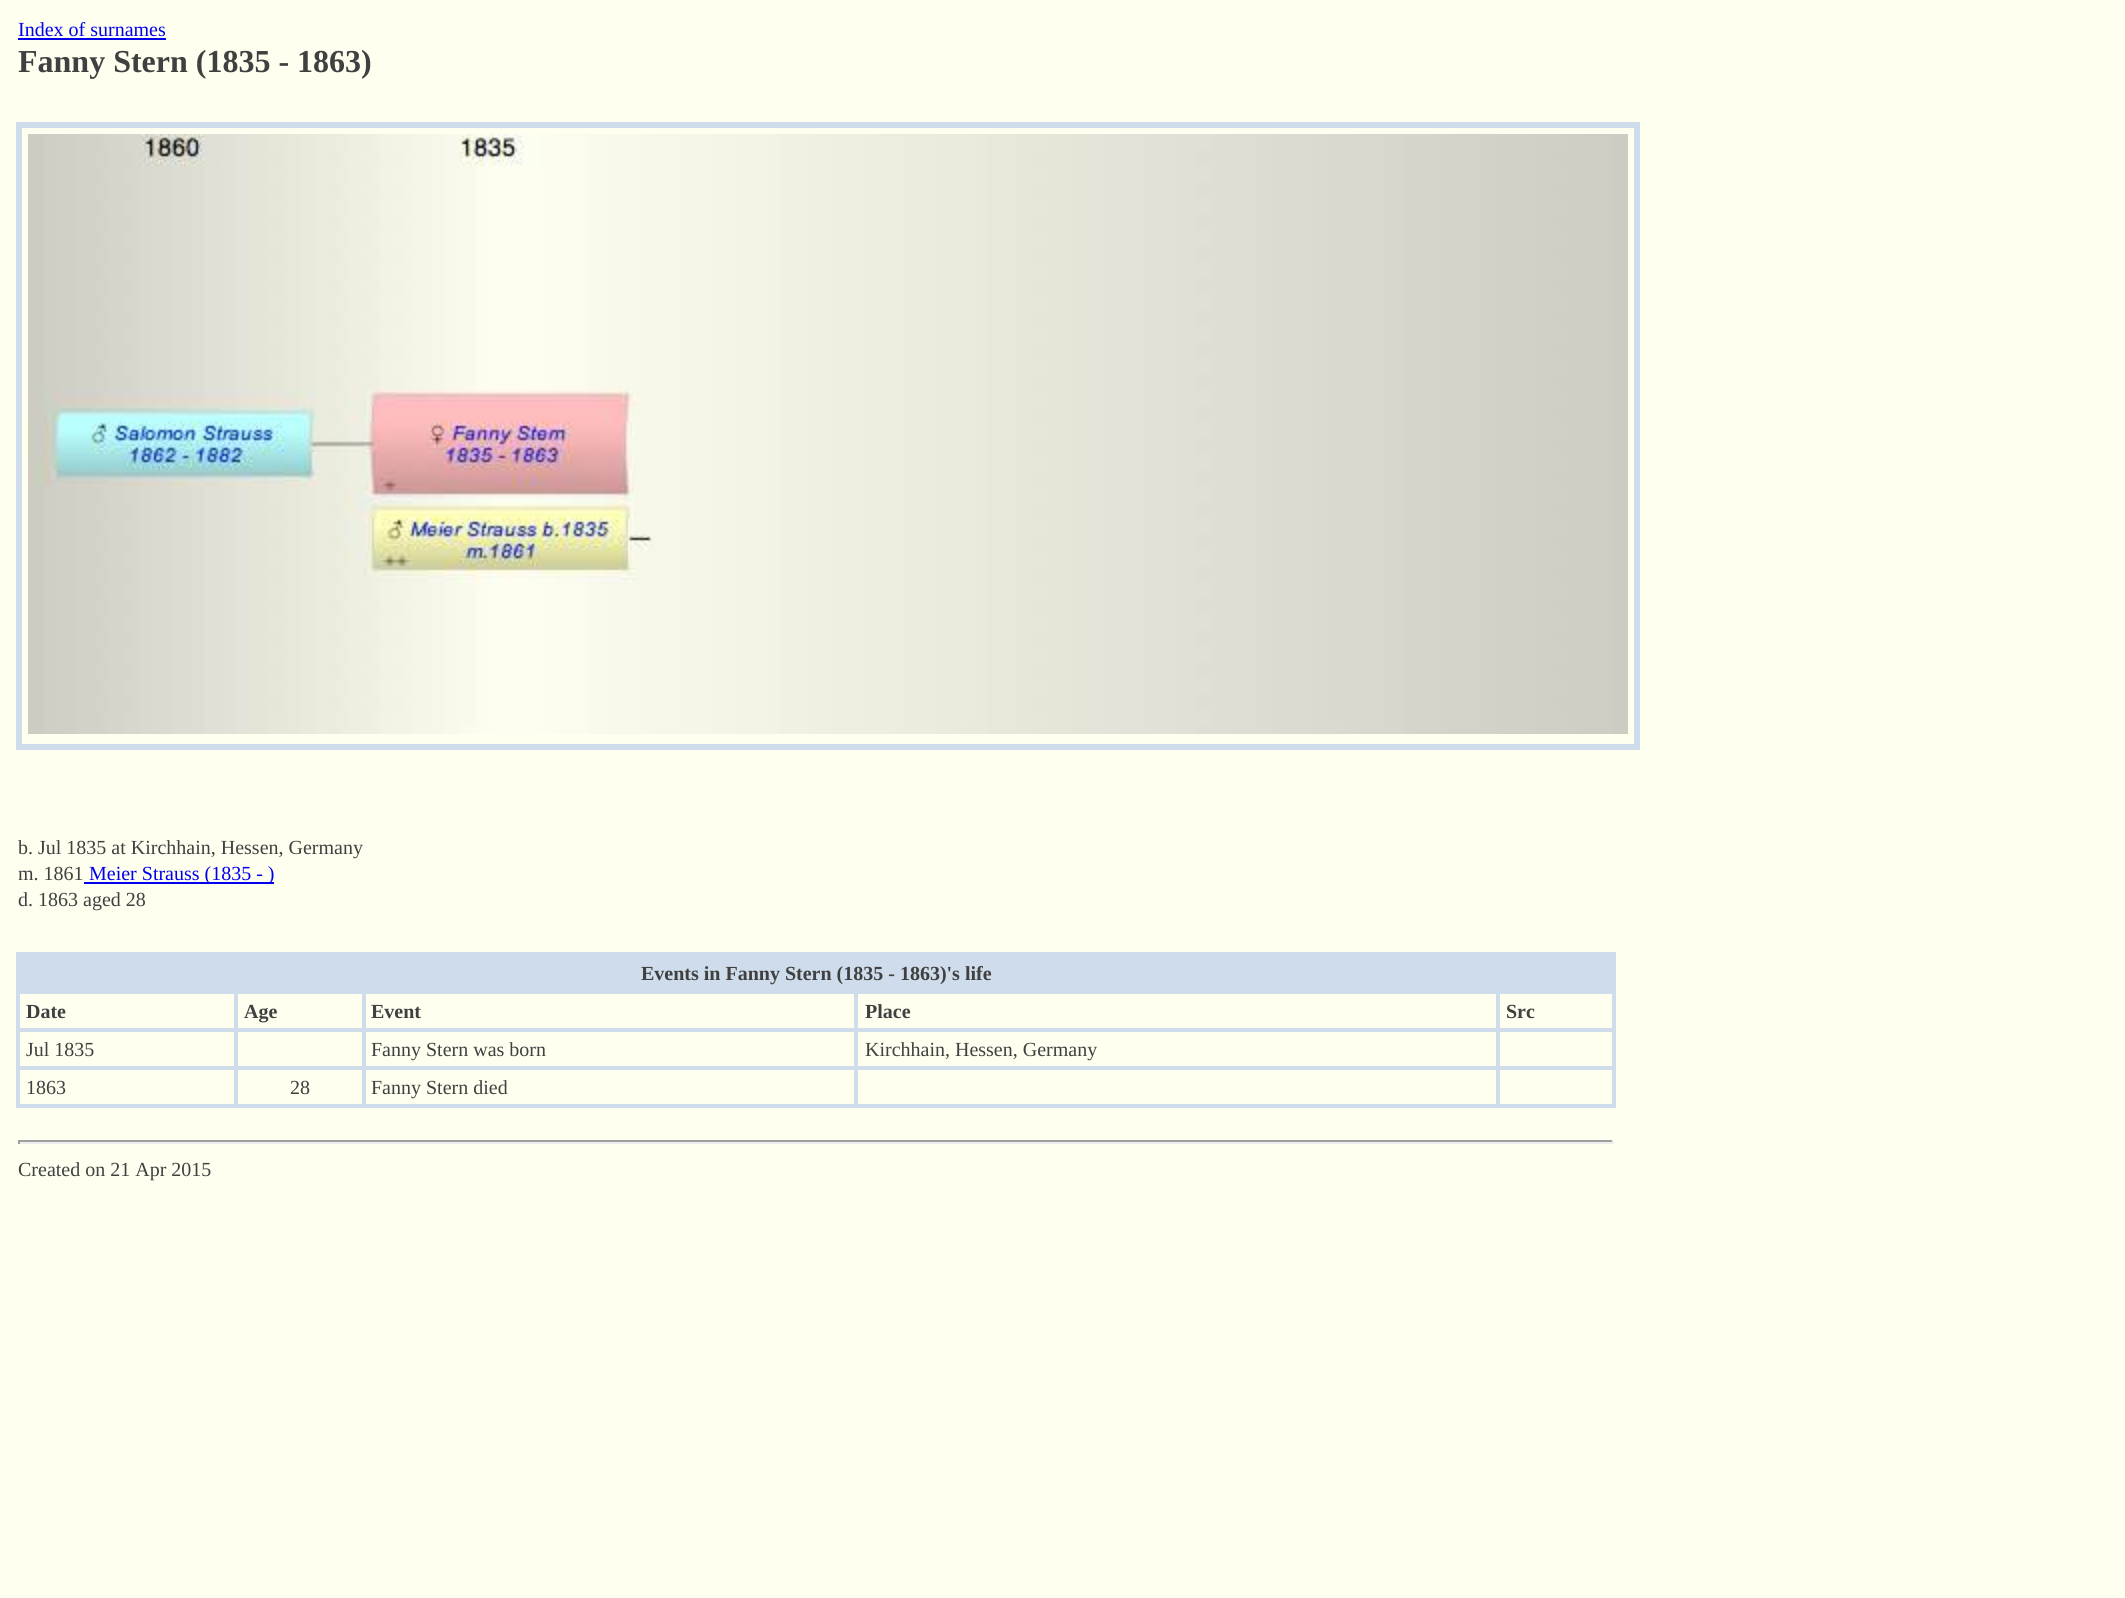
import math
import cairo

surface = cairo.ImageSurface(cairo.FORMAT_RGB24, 2125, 1598)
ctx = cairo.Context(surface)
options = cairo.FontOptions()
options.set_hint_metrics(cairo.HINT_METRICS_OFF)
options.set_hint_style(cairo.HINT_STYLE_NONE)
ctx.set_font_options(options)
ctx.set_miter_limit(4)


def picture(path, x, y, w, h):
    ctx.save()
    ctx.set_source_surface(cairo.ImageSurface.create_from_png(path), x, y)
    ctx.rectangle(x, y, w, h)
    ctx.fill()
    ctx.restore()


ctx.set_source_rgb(1, 1, 0.941)
ctx.paint()
ctx.select_font_face("Liberation Serif")
ctx.set_font_size(20)
ctx.set_source_rgb(0, 0, 0.933)
ctx.move_to(18, 36)
ctx.show_text("Index of surnames")
ctx.rectangle(18, 38, 148, 2)
ctx.fill()
ctx.select_font_face("Liberation Serif", cairo.FONT_SLANT_NORMAL, cairo.FONT_WEIGHT_BOLD)
ctx.set_font_size(32)
ctx.set_source_rgb(0.251, 0.251, 0.251)
ctx.move_to(18, 72)
ctx.show_text("Fanny Stern (1835 - 1863)")
ctx.set_source_rgb(0.808, 0.863, 0.918)
ctx.rectangle(16, 122, 1624, 6)
ctx.fill()
ctx.rectangle(1634, 122, 6, 628)
ctx.fill()
ctx.rectangle(16, 744, 1624, 6)
ctx.fill()
ctx.rectangle(16, 122, 6, 628)
ctx.fill()
picture("img1.png", 28, 134, 1600, 600)
ctx.select_font_face("Liberation Serif")
ctx.set_font_size(20)
ctx.set_source_rgb(0.251, 0.251, 0.251)
ctx.move_to(18, 854)
ctx.show_text("b. Jul 1835 at Kirchhain, Hessen, Germany")
ctx.move_to(18, 880)
ctx.show_text("m. 1861")
ctx.set_source_rgb(0, 0, 0.933)
ctx.rectangle(84, 882, 190, 2)
ctx.fill()
ctx.move_to(89, 880)
ctx.show_text("Meier Strauss (1835 - )")
ctx.set_source_rgb(0.251, 0.251, 0.251)
ctx.move_to(18, 906)
ctx.show_text("d. 1863 aged 28")
ctx.set_source_rgb(0.808, 0.863, 0.918)
ctx.rectangle(20, 956, 1592, 34)
ctx.fill()
ctx.rectangle(16, 952, 1600, 4)
ctx.fill()
ctx.rectangle(1496, 990, 120, 4)
ctx.fill()
ctx.rectangle(1496, 1028, 120, 4)
ctx.fill()
ctx.rectangle(1496, 1066, 120, 4)
ctx.fill()
ctx.rectangle(1612, 1066, 4, 42)
ctx.fill()
ctx.rectangle(1612, 1028, 4, 42)
ctx.fill()
ctx.rectangle(1612, 990, 4, 42)
ctx.fill()
ctx.rectangle(1612, 952, 4, 42)
ctx.fill()
ctx.rectangle(1496, 1104, 120, 4)
ctx.fill()
ctx.rectangle(1496, 1066, 4, 42)
ctx.fill()
ctx.rectangle(854, 1066, 646, 4)
ctx.fill()
ctx.rectangle(1496, 1028, 4, 42)
ctx.fill()
ctx.rectangle(854, 1028, 646, 4)
ctx.fill()
ctx.rectangle(1496, 990, 4, 42)
ctx.fill()
ctx.rectangle(854, 990, 646, 4)
ctx.fill()
ctx.rectangle(854, 1104, 646, 4)
ctx.fill()
ctx.rectangle(854, 1066, 4, 42)
ctx.fill()
ctx.rectangle(362, 1066, 496, 4)
ctx.fill()
ctx.rectangle(854, 1028, 4, 42)
ctx.fill()
ctx.rectangle(362, 1028, 496, 4)
ctx.fill()
ctx.rectangle(854, 990, 4, 42)
ctx.fill()
ctx.rectangle(362, 990, 496, 4)
ctx.fill()
ctx.rectangle(362, 1104, 496, 4)
ctx.fill()
ctx.rectangle(362, 1066, 4, 42)
ctx.fill()
ctx.rectangle(234, 1066, 132, 4)
ctx.fill()
ctx.rectangle(362, 1028, 4, 42)
ctx.fill()
ctx.rectangle(234, 1028, 132, 4)
ctx.fill()
ctx.rectangle(362, 990, 4, 42)
ctx.fill()
ctx.rectangle(234, 990, 132, 4)
ctx.fill()
ctx.rectangle(234, 1104, 132, 4)
ctx.fill()
ctx.rectangle(234, 1066, 4, 42)
ctx.fill()
ctx.rectangle(16, 1066, 222, 4)
ctx.fill()
ctx.rectangle(234, 1028, 4, 42)
ctx.fill()
ctx.rectangle(16, 1028, 222, 4)
ctx.fill()
ctx.rectangle(234, 990, 4, 42)
ctx.fill()
ctx.rectangle(16, 990, 222, 4)
ctx.fill()
ctx.rectangle(16, 1104, 222, 4)
ctx.fill()
ctx.rectangle(16, 1066, 4, 42)
ctx.fill()
ctx.rectangle(16, 1028, 4, 42)
ctx.fill()
ctx.rectangle(16, 990, 4, 42)
ctx.fill()
ctx.rectangle(16, 952, 4, 42)
ctx.fill()
ctx.select_font_face("Liberation Serif", cairo.FONT_SLANT_NORMAL, cairo.FONT_WEIGHT_BOLD)
ctx.set_source_rgb(0.251, 0.251, 0.251)
ctx.move_to(641, 980)
ctx.show_text("Events in Fanny Stern (1835 - 1863)'s life")
ctx.move_to(26, 1018)
ctx.show_text("Date")
ctx.move_to(244, 1018)
ctx.show_text("Age")
ctx.move_to(371, 1018)
ctx.show_text("Event")
ctx.move_to(865, 1018)
ctx.show_text("Place")
ctx.move_to(1506, 1018)
ctx.show_text("Src")
ctx.select_font_face("Liberation Serif")
ctx.move_to(26, 1056)
ctx.show_text("Jul 1835")
ctx.move_to(371, 1056)
ctx.show_text("Fanny Stern was born")
ctx.move_to(865, 1056)
ctx.show_text("Kirchhain, Hessen, Germany")
ctx.move_to(26, 1094)
ctx.show_text("1863")
ctx.move_to(290, 1094)
ctx.show_text("28")
ctx.move_to(371, 1094)
ctx.show_text("Fanny Stern died")
ctx.set_source_rgb(0.624, 0.624, 0.624)
ctx.rectangle(18, 1140, 1596, 2)
ctx.fill()
ctx.set_source_rgb(0.933, 0.933, 0.933)
ctx.rectangle(1612, 1140, 2, 4)
ctx.fill()
ctx.rectangle(18, 1142, 1596, 2)
ctx.fill()
ctx.set_source_rgb(0.624, 0.624, 0.624)
ctx.rectangle(18, 1140, 2, 4)
ctx.fill()
ctx.set_source_rgb(0.251, 0.251, 0.251)
ctx.move_to(18, 1176)
ctx.show_text("Created on 21 Apr 2015")
surface.write_to_png("page.png")
